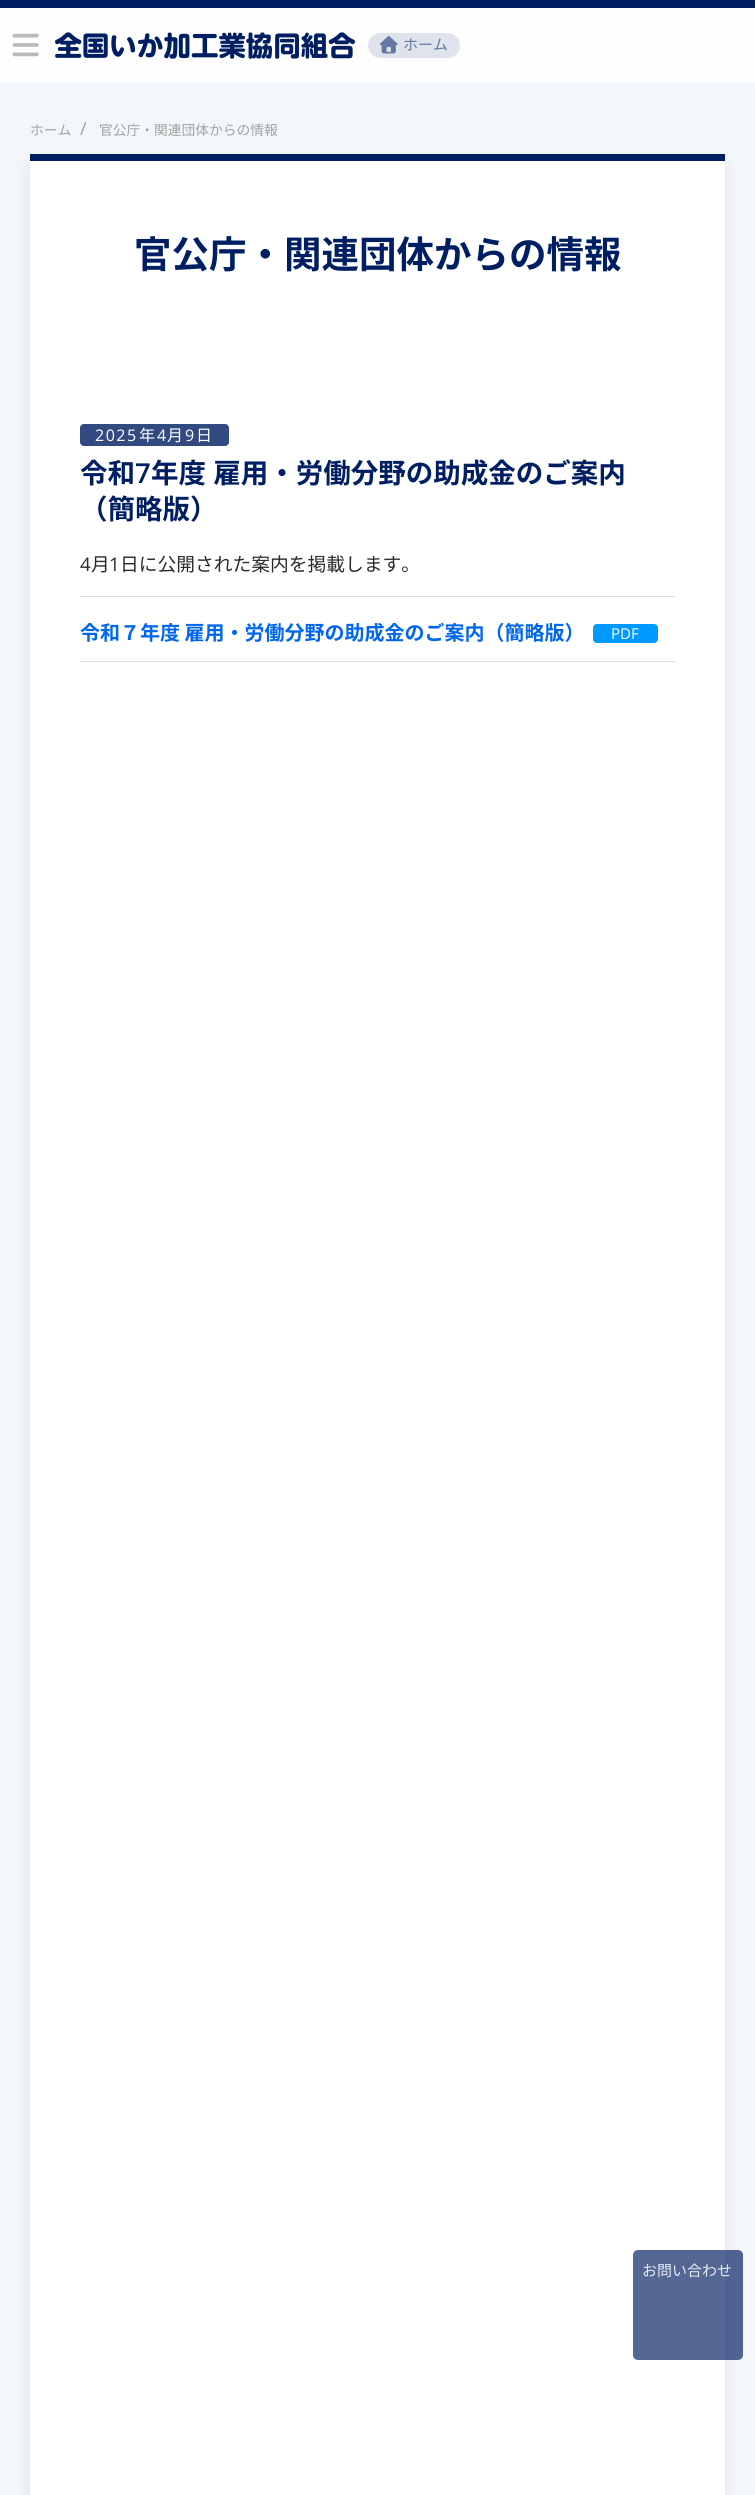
import math
import cairo

surface = cairo.ImageSurface(cairo.FORMAT_RGB24, 755, 2495)
ctx = cairo.Context(surface)
options = cairo.FontOptions()
options.set_hint_metrics(cairo.HINT_METRICS_OFF)
options.set_hint_style(cairo.HINT_STYLE_NONE)
ctx.set_font_options(options)
ctx.set_miter_limit(4)


def spaced_text(x, y, s, letter, word):
    ctx.move_to(x, y)
    for ch in s:
        ctx.show_text(ch)
        ctx.rel_move_to(letter + word * (ch == ' '), 0)


def round_rect(x, y, w, h, r):
    ctx.new_sub_path()
    for i, (u, v) in enumerate([(x + w - r, y + h - r), (x + r, y + h - r), (x + r, y + r), (x + w - r, y + r)]):
        ctx.arc(u, v, r, i * math.pi / 2, (i + 1) * math.pi / 2)
    ctx.close_path()


def shadow(x, y, w, h, r, blur, alpha):
    ctx.push_group_with_content(cairo.CONTENT_ALPHA)
    ctx.set_operator(cairo.OPERATOR_SOURCE)
    for i in range(15, -16, -2):
        e = blur * i / 6
        if min(w, h) + 2 * e > 0:
            ctx.set_source_rgba(0, 0, 0, alpha * math.erfc((i - 1) / 8.5) / 2)
            round_rect(x - e, y - e, w + 2 * e, h + 2 * e, max(0, min(r + e + blur * .6, min(w, h) / 2 + e)))
            ctx.fill()
    ctx.mask(ctx.pop_group())


def picture(path, x, y, w, h):
    ctx.save()
    ctx.set_source_surface(cairo.ImageSurface.create_from_png(path), x, y)
    ctx.rectangle(x, y, w, h)
    ctx.fill()
    ctx.restore()


ctx.set_source_rgb(0.953, 0.965, 0.976)
ctx.paint()
ctx.set_source_rgb(0, 0.118, 0.384)
ctx.rectangle(0, 0, 755, 8)
ctx.fill()
ctx.set_source_rgba(1, 1, 1, 0.9)
ctx.rectangle(0, 8, 755, 75)
ctx.fill()
picture("img1.png", 12, 33, 27, 24)
picture("img2.png", 55, 32, 300, 27)
ctx.set_source_rgb(0.875, 0.89, 0.925)
round_rect(368, 33, 92, 25, 12.5)
ctx.fill()
picture("img3.png", 380, 36, 18, 18)
ctx.select_font_face("Noto Sans JP")
ctx.set_font_size(15)
ctx.set_source_rgb(0.404, 0.475, 0.631)
ctx.move_to(403, 50)
ctx.show_text("ホーム")
ctx.set_font_size(13.75)
ctx.set_source_rgb(0.635, 0.635, 0.635)
ctx.move_to(30, 135)
ctx.show_text("ホーム")
ctx.select_font_face("Open Sans")
ctx.set_font_size(18)
ctx.move_to(80, 135)
ctx.show_text("/")
ctx.select_font_face("Noto Sans JP")
ctx.set_font_size(13.75)
ctx.move_to(99, 135)
ctx.show_text("官公庁・関連団体からの情報")
ctx.set_source_rgb(0, 0, 0.2)
shadow(30, 164, 695, 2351, 8, 10, 0.08)
ctx.set_source_rgb(1, 1, 1)
ctx.rectangle(30, 161, 695, 2334)
ctx.fill()
ctx.set_source_rgb(0, 0.118, 0.384)
ctx.rectangle(30, 154, 695, 7)
ctx.fill()
ctx.select_font_face("Noto Sans JP", cairo.FONT_SLANT_NORMAL, cairo.FONT_WEIGHT_BOLD)
ctx.set_font_size(37.5)
ctx.move_to(134, 268)
ctx.show_text("官公庁・関連団体からの情報")
ctx.set_source_rgb(0.2, 0.29, 0.506)
round_rect(80, 424, 149, 22, 4)
ctx.fill()
ctx.select_font_face("Open Sans")
ctx.set_font_size(16)
ctx.set_source_rgb(1, 1, 1)
spaced_text(95, 441, "2025", 1.5, 0)
ctx.select_font_face("Noto Sans JP")
spaced_text(139, 441, "年", 1.5, 0)
ctx.select_font_face("Open Sans")
spaced_text(157, 441, "4", 1.5, 0)
ctx.select_font_face("Noto Sans JP")
spaced_text(167, 441, "月", 1.5, 0)
ctx.select_font_face("Open Sans")
spaced_text(185, 441, "9", 1.5, 0)
ctx.select_font_face("Noto Sans JP")
spaced_text(196, 441, "日", 1.5, 0)
ctx.select_font_face("Noto Sans JP", cairo.FONT_SLANT_NORMAL, cairo.FONT_WEIGHT_BOLD)
ctx.set_font_size(27.5)
ctx.set_source_rgb(0, 0.118, 0.384)
ctx.move_to(80, 483)
ctx.show_text("令和")
ctx.select_font_face("Open Sans SemiBold")
ctx.move_to(135, 483)
ctx.show_text("7")
ctx.select_font_face("Noto Sans JP", cairo.FONT_SLANT_NORMAL, cairo.FONT_WEIGHT_BOLD)
spaced_text(151, 483, "年度 雇⽤・労働分野の助成⾦のご案内", 0, 1)
ctx.move_to(80, 519)
ctx.show_text("（簡略版）")
ctx.select_font_face("Open Sans")
ctx.set_font_size(18.75)
ctx.set_source_rgb(0.165, 0.165, 0.165)
ctx.move_to(80, 571)
ctx.show_text("4")
ctx.select_font_face("Noto Sans JP")
ctx.move_to(91, 571)
ctx.show_text("月")
ctx.select_font_face("Open Sans")
ctx.move_to(109, 571)
ctx.show_text("1")
ctx.select_font_face("Noto Sans JP")
ctx.move_to(120, 571)
ctx.show_text("日に公開された案内を掲載します。")
ctx.set_source_rgb(0.855, 0.867, 0.867)
ctx.rectangle(80, 596, 595, 1)
ctx.fill()
ctx.rectangle(80, 661, 595, 1)
ctx.fill()
ctx.select_font_face("Noto Sans JP", cairo.FONT_SLANT_NORMAL, cairo.FONT_WEIGHT_BOLD)
ctx.set_font_size(20)
ctx.set_source_rgb(0, 0.4, 0.933)
ctx.move_to(80, 640)
ctx.show_text("令和７年度 雇⽤・労働分野の助成⾦のご案内（簡略版）")
ctx.set_source_rgb(0, 0.6, 1)
round_rect(593, 624, 65, 19, 4)
ctx.fill()
ctx.select_font_face("Open Sans")
ctx.set_font_size(15)
ctx.set_source_rgb(1, 1, 1)
ctx.move_to(611, 639)
ctx.show_text("PDF")
ctx.set_source_rgba(0, 0.114, 0.384, 0.67)
round_rect(633, 2250, 110, 110, 5)
ctx.fill()
ctx.select_font_face("Noto Sans JP")
ctx.set_source_rgb(0.906, 0.918, 0.941)
ctx.move_to(642, 2276)
ctx.show_text("お問い合わせ")
surface.write_to_png("page.png")
